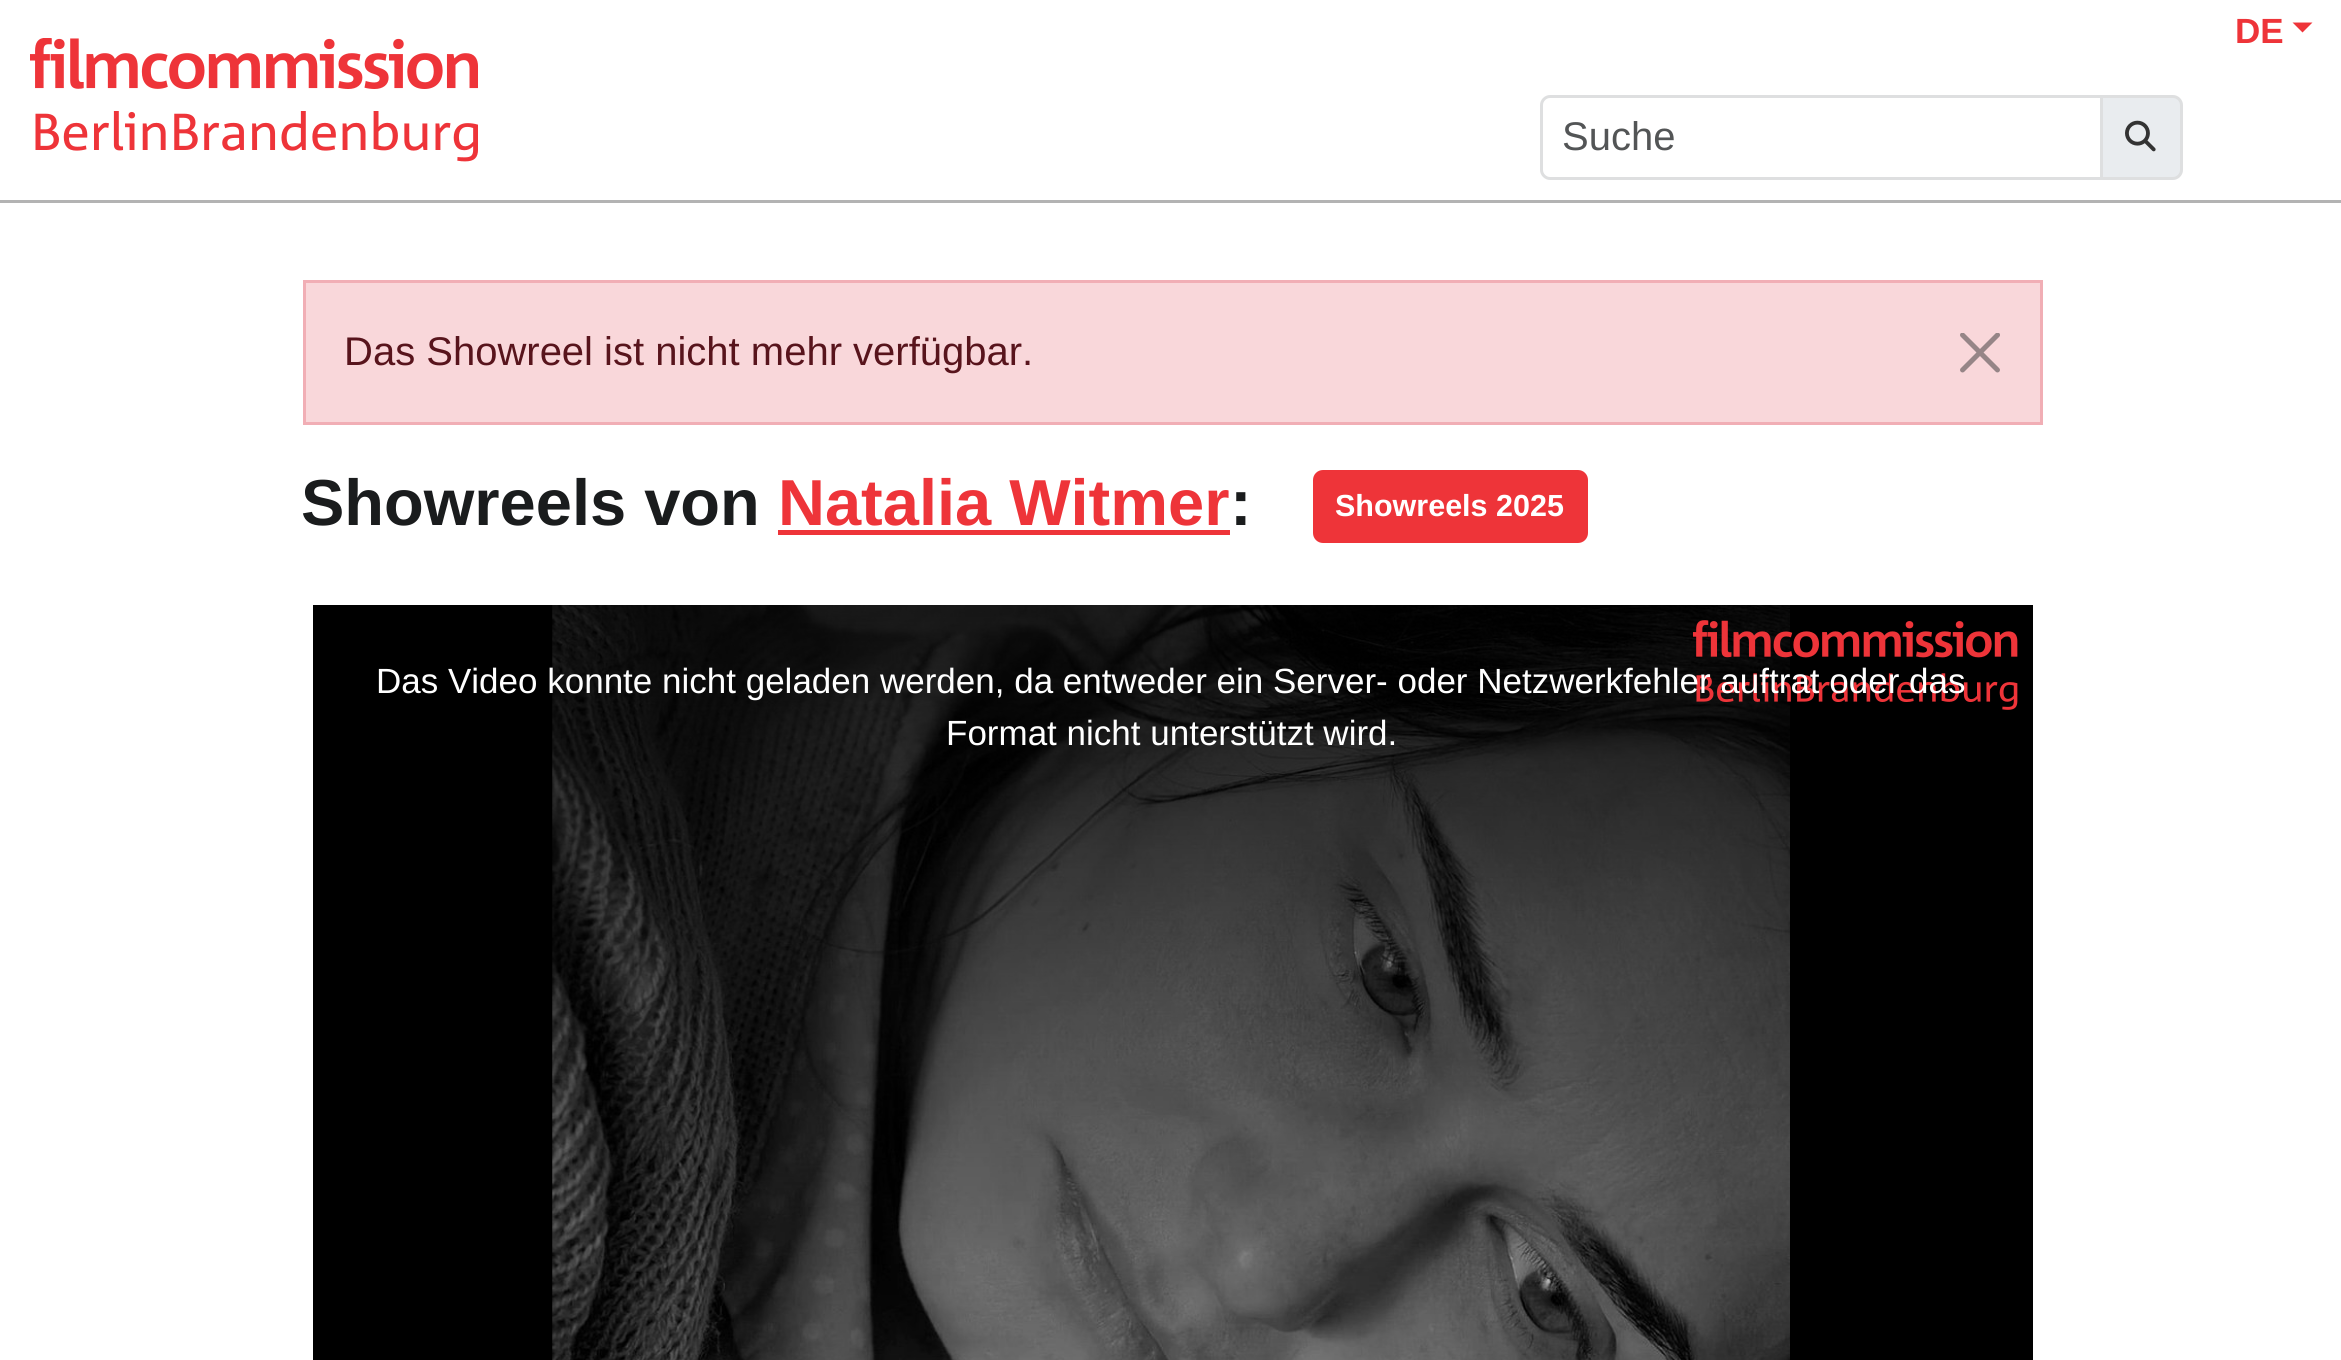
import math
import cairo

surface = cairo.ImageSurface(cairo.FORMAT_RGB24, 2341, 1360)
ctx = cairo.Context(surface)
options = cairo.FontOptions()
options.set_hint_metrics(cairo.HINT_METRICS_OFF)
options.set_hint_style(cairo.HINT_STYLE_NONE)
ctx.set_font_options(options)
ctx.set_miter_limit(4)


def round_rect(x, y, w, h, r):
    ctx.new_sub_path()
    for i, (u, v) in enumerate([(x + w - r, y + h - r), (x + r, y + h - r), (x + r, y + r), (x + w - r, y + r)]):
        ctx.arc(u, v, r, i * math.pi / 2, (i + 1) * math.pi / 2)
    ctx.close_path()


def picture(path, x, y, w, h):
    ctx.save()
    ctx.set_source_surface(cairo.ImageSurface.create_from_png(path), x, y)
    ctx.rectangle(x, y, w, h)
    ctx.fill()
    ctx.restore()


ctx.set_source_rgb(1, 1, 1)
ctx.paint()
ctx.set_source_rgb(0.702, 0.702, 0.702)
ctx.rectangle(0, 200, 2341, 3)
ctx.fill()
picture("img1.png", 30, 38, 448, 124)
ctx.select_font_face("Liberation Sans", cairo.FONT_SLANT_NORMAL, cairo.FONT_WEIGHT_BOLD)
ctx.set_font_size(35)
ctx.set_source_rgb(0.933, 0.204, 0.224)
ctx.move_to(2235, 43)
ctx.show_text("DE")
ctx.new_path()
ctx.move_to(2292.5, 22.5)
ctx.line_to(2312.5, 22.5)
ctx.line_to(2302.5, 32.5)
ctx.close_path()
ctx.fill()
ctx.new_path()
ctx.move_to(1550, 96.5)
ctx.line_to(2101.5, 96.5)
ctx.line_to(2101.5, 178.5)
ctx.line_to(1550, 178.5)
ctx.curve_to(1545.5, 178.5, 1541.5, 174.5, 1541.5, 170)
ctx.line_to(1541.5, 105)
ctx.curve_to(1541.5, 100.5, 1545.5, 96.5, 1550, 96.5)
ctx.close_path()
ctx.set_source_rgb(0.871, 0.875, 0.878)
ctx.set_line_width(3)
ctx.stroke()
ctx.select_font_face("Liberation Sans")
ctx.set_font_size(40)
ctx.set_source_rgb(0.325, 0.333, 0.337)
ctx.move_to(1562, 150)
ctx.show_text("Suche")
ctx.set_source_rgb(0.914, 0.925, 0.937)
ctx.new_path()
ctx.move_to(2101.5, 96.5)
ctx.line_to(2173, 96.5)
ctx.curve_to(2177.5, 96.5, 2181.5, 100.5, 2181.5, 105)
ctx.line_to(2181.5, 170)
ctx.curve_to(2181.5, 174.5, 2177.5, 178.5, 2173, 178.5)
ctx.line_to(2101.5, 178.5)
ctx.close_path()
ctx.fill_preserve()
ctx.set_source_rgb(0.871, 0.875, 0.878)
ctx.stroke()
picture("img2.png", 2125, 120, 31, 32)
ctx.set_source_rgb(0.973, 0.843, 0.855)
ctx.rectangle(304.5, 281.5, 1737, 142)
ctx.fill_preserve()
ctx.set_source_rgb(0.945, 0.682, 0.71)
ctx.stroke()
ctx.set_source_rgb(0.345, 0.082, 0.11)
ctx.move_to(344, 365)
ctx.show_text("Das Showreel ist nicht mehr verfügbar.")
picture("img3.png", 1960, 333, 40, 40)
ctx.select_font_face("Liberation Sans", cairo.FONT_SLANT_NORMAL, cairo.FONT_WEIGHT_BOLD)
ctx.set_font_size(65)
ctx.set_source_rgb(0.102, 0.11, 0.114)
ctx.move_to(301, 525)
ctx.show_text("Showreels von")
ctx.set_source_rgb(0.933, 0.204, 0.224)
ctx.move_to(778, 525)
ctx.show_text("Natalia Witmer")
ctx.rectangle(778, 530, 452, 5)
ctx.fill()
ctx.set_source_rgb(0.102, 0.11, 0.114)
ctx.move_to(1230, 525)
ctx.show_text(":")
ctx.set_source_rgb(0.933, 0.204, 0.224)
round_rect(1314.5, 471.5, 272, 70, 8.5)
ctx.fill_preserve()
ctx.stroke()
ctx.set_font_size(30.5)
ctx.set_source_rgb(1, 1, 1)
ctx.move_to(1335, 516)
ctx.show_text("Showreels 2025")
ctx.set_source_rgb(0, 0, 0)
ctx.rectangle(313, 605, 1720, 755)
ctx.fill()
picture("img4.png", 552, 605, 1238, 755)
picture("img5.png", 552, 605, 1, 755)
gradient = cairo.LinearGradient(1173, 605, 1173, 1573)
gradient.add_color_stop_rgba(0, 0, 0, 0, 0.8)
gradient.add_color_stop_rgba(1, 0, 0, 0, 0)
ctx.set_source(gradient)
ctx.rectangle(552, 605, 1238, 755)
ctx.fill()
picture("img6.png", 1693, 620, 325, 90)
ctx.select_font_face("Liberation Sans")
ctx.set_font_size(35)
ctx.set_source_rgb(1, 1, 1)
ctx.move_to(376, 693)
ctx.show_text("Das Video konnte nicht geladen werden, da entweder ein Server- oder Netzwerkfehler auftrat oder das")
ctx.move_to(946, 745)
ctx.show_text("Format nicht unterstützt wird.")
surface.write_to_png("page.png")
